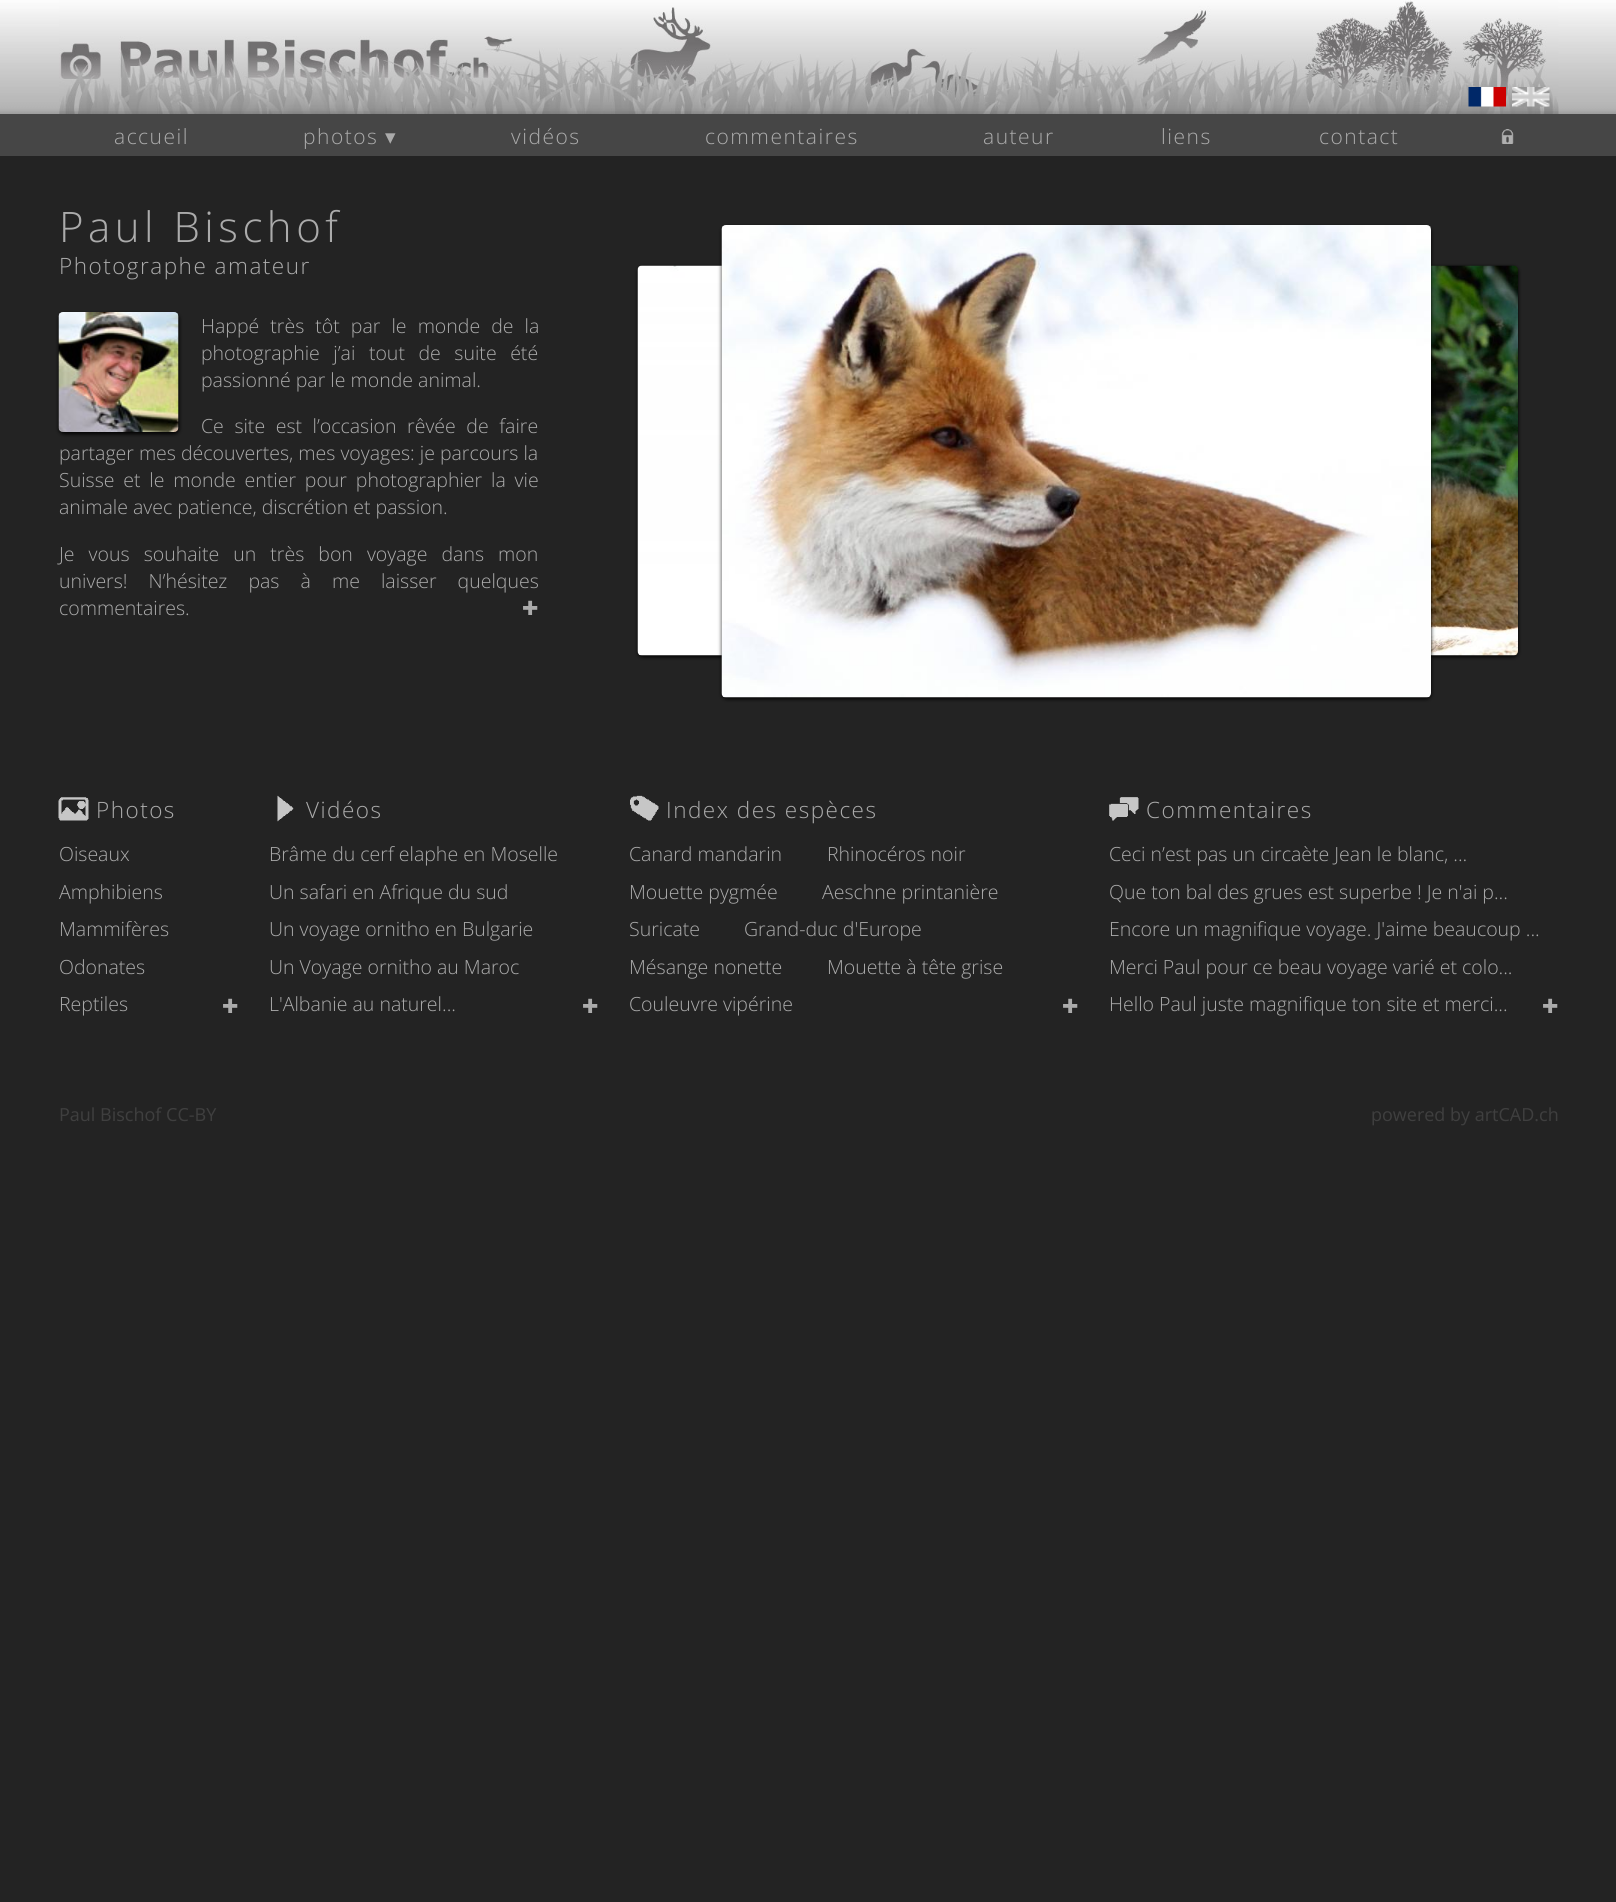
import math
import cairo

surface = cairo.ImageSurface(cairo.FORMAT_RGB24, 1616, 1902)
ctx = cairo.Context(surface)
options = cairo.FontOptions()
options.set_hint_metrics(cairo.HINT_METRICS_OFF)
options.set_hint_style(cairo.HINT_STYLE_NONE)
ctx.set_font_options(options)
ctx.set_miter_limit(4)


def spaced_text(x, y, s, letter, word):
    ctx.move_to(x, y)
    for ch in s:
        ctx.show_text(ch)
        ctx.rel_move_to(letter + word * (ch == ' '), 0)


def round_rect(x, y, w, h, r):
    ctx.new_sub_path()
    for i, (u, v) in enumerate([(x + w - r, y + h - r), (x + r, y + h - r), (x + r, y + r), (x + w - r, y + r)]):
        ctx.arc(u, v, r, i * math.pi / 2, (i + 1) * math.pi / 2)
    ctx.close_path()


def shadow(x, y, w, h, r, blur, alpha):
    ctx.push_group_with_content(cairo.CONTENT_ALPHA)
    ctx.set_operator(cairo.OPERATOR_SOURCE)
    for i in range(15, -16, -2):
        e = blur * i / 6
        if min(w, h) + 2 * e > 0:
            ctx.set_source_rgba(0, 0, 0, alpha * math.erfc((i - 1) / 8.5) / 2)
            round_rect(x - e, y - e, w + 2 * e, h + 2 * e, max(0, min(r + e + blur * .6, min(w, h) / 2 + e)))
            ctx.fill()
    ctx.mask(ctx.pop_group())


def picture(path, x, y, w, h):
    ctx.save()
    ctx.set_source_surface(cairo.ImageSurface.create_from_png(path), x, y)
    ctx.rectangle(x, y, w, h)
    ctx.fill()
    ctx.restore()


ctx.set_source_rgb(0.137, 0.137, 0.137)
ctx.paint()
picture("img1.png", 0, 0, 1616, 114)
picture("img2.png", 59, 0, 1500, 114)
picture("img3.png", 1468, 87, 38, 20)
picture("img4.png", 1512, 87, 38, 20)
ctx.set_source_rgb(0.275, 0.275, 0.275)
ctx.rectangle(0, 114, 1616, 42)
ctx.fill()
ctx.select_font_face("Open Sans Light")
ctx.set_font_size(21)
ctx.set_source_rgb(0.671, 0.671, 0.671)
spaced_text(114, 144, "accueil", 1.5, 0)
spaced_text(303, 144, "photos", 1.5, 0)
ctx.select_font_face("DejaVu Sans")
spaced_text(385, 144, "▾", 1.5, 0)
ctx.select_font_face("Open Sans Light")
spaced_text(511, 144, "vidéos", 1.5, 0)
spaced_text(705, 144, "commentaires", 1.5, 0)
spaced_text(983, 144, "auteur", 1.5, 0)
spaced_text(1161, 144, "liens", 1.5, 0)
spaced_text(1319, 144, "contact", 1.5, 0)
picture("img5.png", 1501, 129, 13, 15)
ctx.set_font_size(42)
spaced_text(59, 242, "Paul Bischof", 4.5, 0)
ctx.set_font_size(22.5)
spaced_text(59, 274, "Photographe amateur", 1.5, 0)
ctx.set_source_rgb(0, 0, 0)
shadow(59, 314, 120, 120, 5, 2, 1)
picture("img6.png", 58, 312, 121, 120)
ctx.set_font_size(19.5)
ctx.set_source_rgb(0.671, 0.671, 0.671)
spaced_text(201, 333, "Happé très tôt par le monde de la", 0, 6)
spaced_text(201, 360, "photographie j’ai tout de suite été", 0, 8.5)
ctx.move_to(201, 387)
ctx.show_text("passionné par le monde animal.")
spaced_text(201, 433, "Ce site est l’occasion rêvée de faire", 0, 5.5)
ctx.move_to(59, 460)
ctx.show_text("partager mes découvertes, mes voyages: je parcours la")
spaced_text(59, 487, "Suisse et le monde entier pour photographier la vie", 0, 3.75)
ctx.move_to(59, 514)
ctx.show_text("animale avec patience, discrétion et passion.")
spaced_text(59, 561, "Je vous souhaite un très bon voyage dans mon", 0, 9)
spaced_text(59, 588, "univers! N’hésitez pas à me laisser quelques", 0, 16)
ctx.move_to(59, 615)
ctx.show_text("commentaires.")
ctx.select_font_face("DejaVu Sans")
ctx.move_to(522, 615)
ctx.show_text("✚")
ctx.set_source_rgb(0, 0, 0)
shadow(638, 267, 583, 390, 5, 2, 1)
picture("img8.png", 637, 265, 85, 391)
shadow(932, 267, 586, 390, 5, 2, 1)
picture("img9.png", 1431, 265, 87, 391)
shadow(722, 227, 709, 472, 5, 2, 1)
picture("img7.png", 721, 225, 710, 473)
picture("img10.png", 58, 797, 31, 24)
ctx.select_font_face("Open Sans Light")
ctx.set_font_size(22.5)
ctx.set_source_rgb(0.671, 0.671, 0.671)
spaced_text(96, 818, "Photos", 1.5, 0)
ctx.set_font_size(19.5)
ctx.move_to(59, 861)
ctx.show_text("Oiseaux")
ctx.move_to(59, 899)
ctx.show_text("Amphibiens")
ctx.move_to(59, 936)
ctx.show_text("Mammifères")
ctx.move_to(59, 974)
ctx.show_text("Odonates")
ctx.move_to(59, 1011)
ctx.show_text("Reptiles")
ctx.select_font_face("DejaVu Sans")
ctx.move_to(222, 1013)
ctx.show_text("✚")
picture("img11.png", 277, 795, 17, 27)
ctx.select_font_face("Open Sans Light")
ctx.set_font_size(22.5)
spaced_text(306, 818, "Vidéos", 1.5, 0)
ctx.set_font_size(19.5)
ctx.move_to(269, 861)
ctx.show_text("Brâme du cerf elaphe en Moselle")
ctx.move_to(269, 899)
ctx.show_text("Un safari en Afrique du sud")
ctx.move_to(269, 936)
ctx.show_text("Un voyage ornitho en Bulgarie")
ctx.move_to(269, 974)
ctx.show_text("Un Voyage ornitho au Maroc")
ctx.move_to(269, 1011)
ctx.show_text("L'Albanie au naturel...")
ctx.select_font_face("DejaVu Sans")
ctx.move_to(582, 1013)
ctx.show_text("✚")
picture("img12.png", 630, 795, 29, 26)
ctx.select_font_face("Open Sans Light")
ctx.set_font_size(22.5)
spaced_text(666, 818, "Index des espèces", 1.5, 0)
ctx.set_font_size(19.5)
ctx.move_to(629, 861)
ctx.show_text("Canard mandarin")
ctx.move_to(827, 861)
ctx.show_text("Rhinocéros noir")
ctx.move_to(629, 899)
ctx.show_text("Mouette pygmée")
ctx.move_to(822, 899)
ctx.show_text("Aeschne printanière")
ctx.move_to(629, 936)
ctx.show_text("Suricate")
ctx.move_to(744, 936)
ctx.show_text("Grand-duc d'Europe")
ctx.move_to(629, 974)
ctx.show_text("Mésange nonette")
ctx.move_to(827, 974)
ctx.show_text("Mouette à tête grise")
ctx.move_to(629, 1011)
ctx.show_text("Couleuvre vipérine")
ctx.select_font_face("DejaVu Sans")
ctx.move_to(1062, 1013)
ctx.show_text("✚")
picture("img13.png", 1109, 797, 30, 24)
ctx.select_font_face("Open Sans Light")
ctx.set_font_size(22.5)
spaced_text(1146, 818, "Commentaires", 1.5, 0)
ctx.set_font_size(19.5)
ctx.move_to(1109, 861)
ctx.show_text("Ceci n’est pas un circaète Jean le blanc, ...")
ctx.move_to(1109, 899)
ctx.show_text("Que ton bal des grues est superbe ! Je n'ai p...")
ctx.move_to(1109, 936)
ctx.show_text("Encore un magnifique voyage. J'aime beaucoup ...")
ctx.move_to(1109, 974)
ctx.show_text("Merci Paul pour ce beau voyage varié et colo...")
ctx.move_to(1109, 1011)
ctx.show_text("Hello Paul juste magnifique ton site et merci...")
ctx.select_font_face("DejaVu Sans")
ctx.move_to(1542, 1013)
ctx.show_text("✚")
ctx.select_font_face("Open Sans")
ctx.set_font_size(18)
ctx.set_source_rgb(0.247, 0.247, 0.247)
ctx.move_to(59, 1121)
ctx.show_text("Paul Bischof CC-BY")
ctx.move_to(1371, 1121)
ctx.show_text("powered by artCAD.ch")
surface.write_to_png("page.png")
